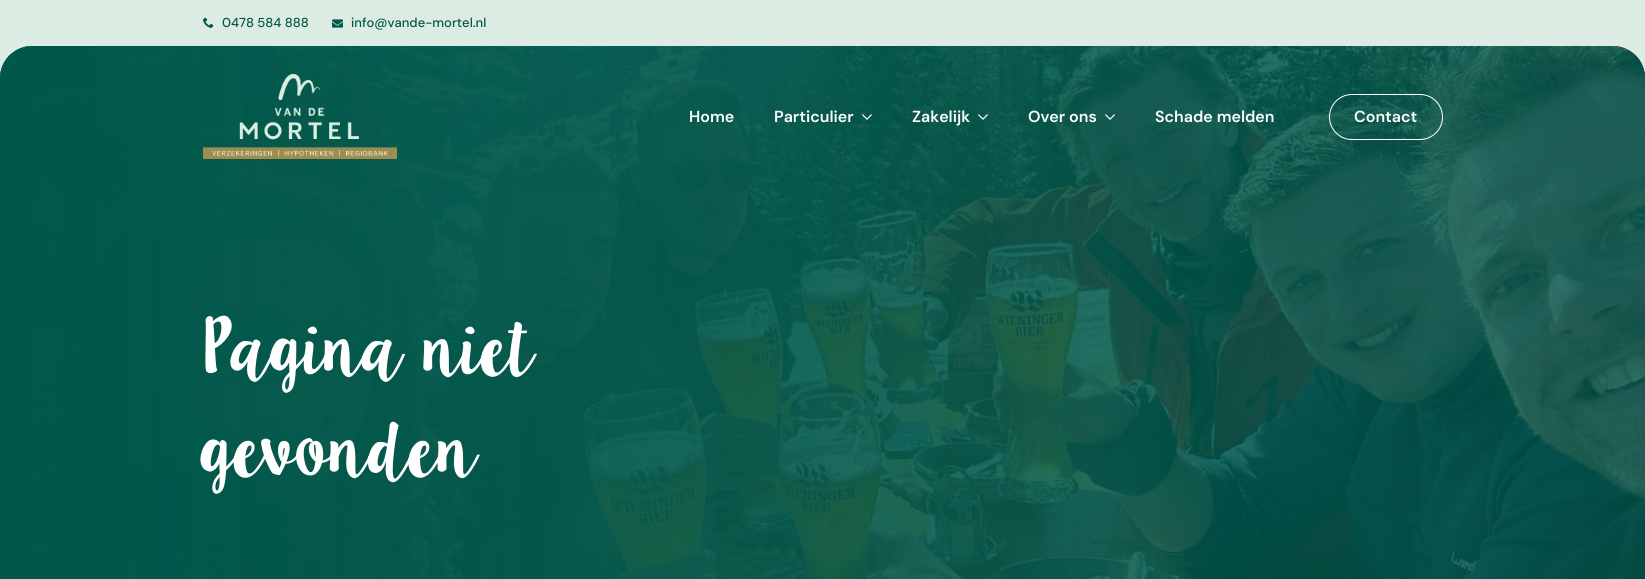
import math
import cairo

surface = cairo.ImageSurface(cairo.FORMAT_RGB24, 1645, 579)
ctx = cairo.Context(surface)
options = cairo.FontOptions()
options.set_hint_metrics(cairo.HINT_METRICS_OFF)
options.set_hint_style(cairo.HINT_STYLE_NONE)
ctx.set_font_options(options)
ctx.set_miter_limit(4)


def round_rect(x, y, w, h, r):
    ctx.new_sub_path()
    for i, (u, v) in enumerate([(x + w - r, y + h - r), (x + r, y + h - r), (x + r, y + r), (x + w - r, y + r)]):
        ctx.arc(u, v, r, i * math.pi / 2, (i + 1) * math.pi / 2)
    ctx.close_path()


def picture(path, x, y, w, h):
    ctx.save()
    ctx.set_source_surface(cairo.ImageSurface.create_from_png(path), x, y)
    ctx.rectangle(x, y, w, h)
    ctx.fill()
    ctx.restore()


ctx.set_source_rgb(0.867, 0.922, 0.89)
ctx.paint()
picture("img1.png", 203, 17, 11, 11)
ctx.select_font_face("DM Sans Medium")
ctx.set_font_size(13)
ctx.set_source_rgb(0, 0.345, 0.29)
ctx.move_to(222, 27)
ctx.show_text("0478 584 888")
picture("img2.png", 332, 19, 11, 9)
ctx.move_to(351, 27)
ctx.show_text("info@vande-mortel.nl")
ctx.new_path()
ctx.move_to(32, 46)
ctx.line_to(1613, 46)
ctx.curve_to(1630.5, 46, 1645, 60.5, 1645, 78)
ctx.line_to(1645, 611)
ctx.line_to(0, 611)
ctx.line_to(0, 78)
ctx.curve_to(0, 60.5, 14.5, 46, 32, 46)
ctx.close_path()
ctx.fill()
picture("img7.png", 0, 46, 1645, 533)
gradient = cairo.LinearGradient(0, 371, 1645, 371)
gradient.add_color_stop_rgba(0.01, 0, 0.345, 0.29, 1)
gradient.add_color_stop_rgba(0.5, 0, 0.345, 0.29, 0.9)
gradient.add_color_stop_rgba(1, 0, 0.345, 0.29, 0.8)
ctx.set_source(gradient)
ctx.new_path()
ctx.move_to(32, 46)
ctx.line_to(1613, 46)
ctx.curve_to(1630.5, 46, 1645, 60.5, 1645, 78)
ctx.line_to(1645, 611)
ctx.line_to(0, 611)
ctx.line_to(0, 78)
ctx.curve_to(0, 60.5, 14.5, 46, 32, 46)
ctx.close_path()
ctx.fill()
picture("img3.png", 203, 74, 194, 85)
ctx.select_font_face("DM Sans SemiBold")
ctx.set_font_size(16)
ctx.set_source_rgb(1, 1, 1)
ctx.move_to(689, 122)
ctx.show_text("Home")
ctx.move_to(774, 122)
ctx.show_text("Particulier")
picture("img4.png", 862, 114, 10, 6)
ctx.move_to(912, 122)
ctx.show_text("Zakelijk")
picture("img5.png", 978, 114, 10, 6)
ctx.move_to(1028, 122)
ctx.show_text("Over ons")
picture("img6.png", 1105, 114, 10, 6)
ctx.move_to(1155, 122)
ctx.show_text("Schade melden")
round_rect(1329.5, 94.5, 113, 45, 22.5)
ctx.set_line_width(1)
ctx.stroke()
ctx.move_to(1354, 122)
ctx.show_text("Contact")
ctx.select_font_face("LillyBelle")
ctx.set_font_size(64)
ctx.move_to(203, 372)
ctx.show_text("Pagina niet")
ctx.move_to(203, 473)
ctx.show_text("gevonden")
surface.write_to_png("page.png")
